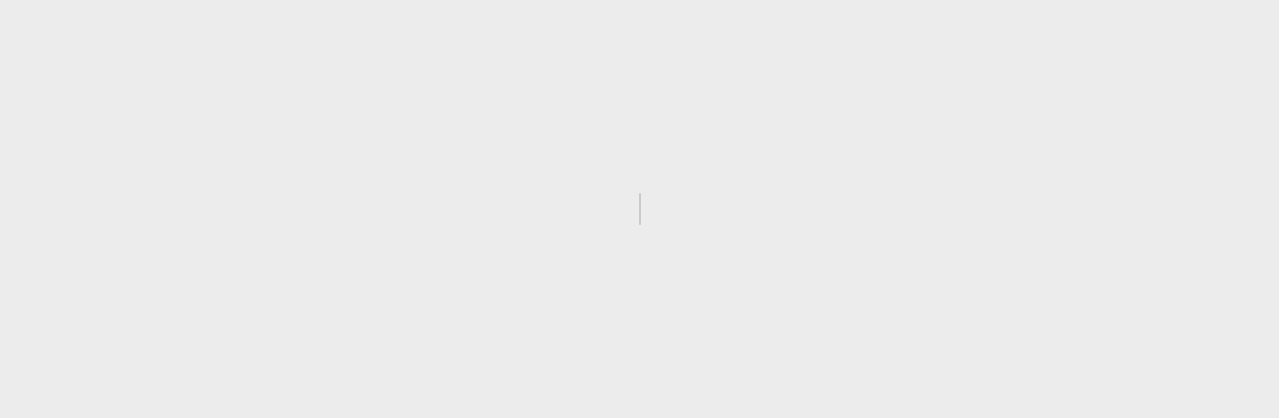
import math
import cairo

surface = cairo.ImageSurface(cairo.FORMAT_RGB24, 1279, 418)
ctx = cairo.Context(surface)
options = cairo.FontOptions()
options.set_hint_metrics(cairo.HINT_METRICS_OFF)
options.set_hint_style(cairo.HINT_STYLE_NONE)
ctx.set_font_options(options)
ctx.set_miter_limit(4)


def round_rect(x, y, w, h, r):
    ctx.new_sub_path()
    for i, (u, v) in enumerate([(x + w - r, y + h - r), (x + r, y + h - r), (x + r, y + r), (x + w - r, y + r)]):
        ctx.arc(u, v, r, i * math.pi / 2, (i + 1) * math.pi / 2)
    ctx.close_path()


ctx.set_source_rgb(0.922, 0.922, 0.922)
ctx.paint()
ctx.set_source_rgb(0.792, 0.792, 0.792)
round_rect(639, 193, 2, 32, 1)
ctx.fill()
surface.write_to_png("page.png")
